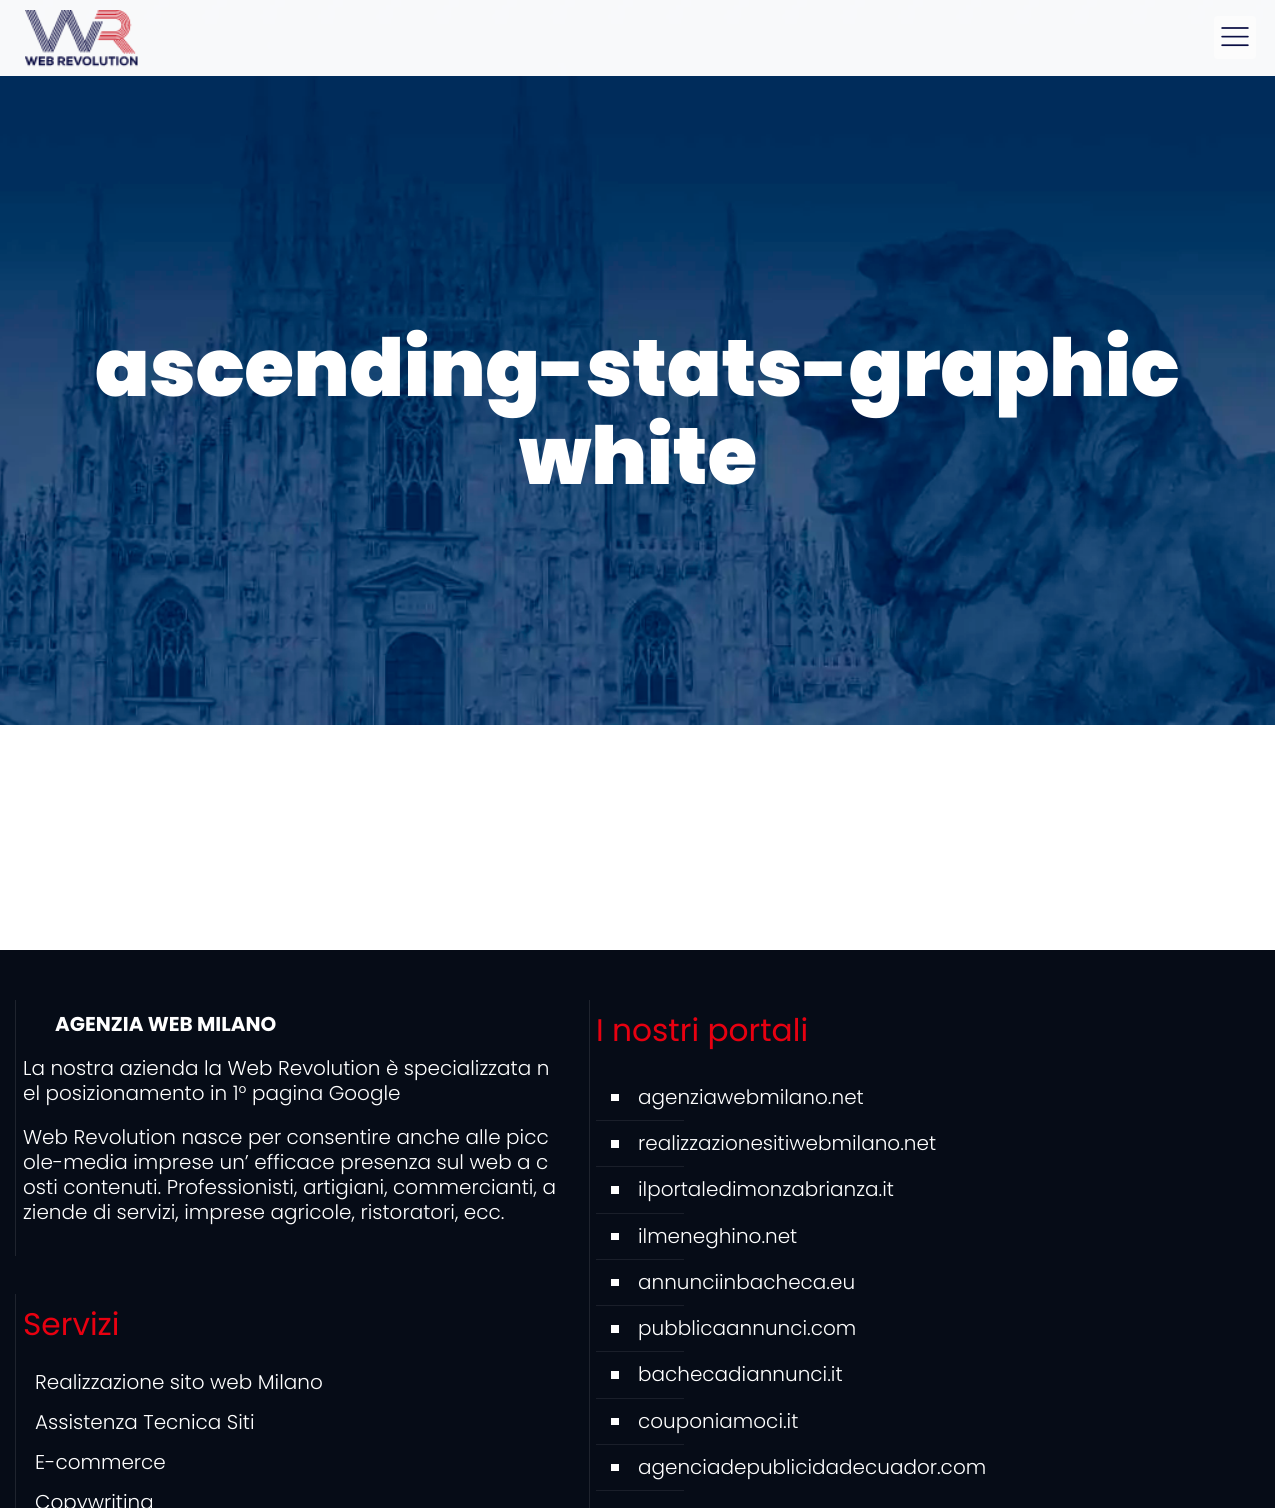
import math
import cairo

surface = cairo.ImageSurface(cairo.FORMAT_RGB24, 1275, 1508)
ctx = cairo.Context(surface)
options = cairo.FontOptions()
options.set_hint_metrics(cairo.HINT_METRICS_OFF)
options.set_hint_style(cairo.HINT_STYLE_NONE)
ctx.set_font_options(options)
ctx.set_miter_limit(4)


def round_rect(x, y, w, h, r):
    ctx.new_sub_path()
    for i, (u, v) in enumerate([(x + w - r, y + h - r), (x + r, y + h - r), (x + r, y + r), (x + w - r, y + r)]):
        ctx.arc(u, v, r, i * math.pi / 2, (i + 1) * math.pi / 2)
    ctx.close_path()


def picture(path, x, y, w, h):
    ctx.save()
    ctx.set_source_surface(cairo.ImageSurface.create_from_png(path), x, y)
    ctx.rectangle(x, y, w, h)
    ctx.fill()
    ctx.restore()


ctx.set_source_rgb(1, 1, 1)
ctx.paint()
picture("img3.png", 0, 0, 1275, 725)
ctx.set_source_rgba(1, 1, 1, 0.97)
ctx.rectangle(0, 0, 1275, 76)
ctx.fill()
picture("img1.png", 25, 10, 113, 57)
ctx.set_source_rgb(0.988, 0.988, 0.988)
round_rect(1214, 16, 42, 43, 4)
ctx.fill()
picture("img2.png", 1221, 27, 28, 20)
ctx.select_font_face("Poppins Black")
ctx.set_font_size(80)
ctx.set_source_rgb(1, 1, 1)
ctx.move_to(95, 396)
ctx.show_text("ascending-stats-graphic")
ctx.move_to(519, 484)
ctx.show_text("white")
ctx.set_source_rgb(0.024, 0.047, 0.09)
ctx.rectangle(0, 950, 1275, 558)
ctx.fill()
ctx.set_source_rgb(0.122, 0.141, 0.18)
ctx.rectangle(15, 1000, 1, 256)
ctx.fill()
ctx.select_font_face("Poppins", cairo.FONT_SLANT_NORMAL, cairo.FONT_WEIGHT_BOLD)
ctx.set_font_size(20)
ctx.set_source_rgb(1, 1, 1)
ctx.move_to(55, 1031)
ctx.show_text("AGENZIA WEB MILANO")
ctx.select_font_face("Poppins Light")
ctx.move_to(23, 1075)
ctx.show_text("La nostra azienda la Web Revolution è specializzata n")
ctx.move_to(23, 1100)
ctx.show_text("el posizionamento in 1° pagina Google")
ctx.move_to(23, 1144)
ctx.show_text("Web Revolution nasce per consentire anche alle picc")
ctx.move_to(23, 1169)
ctx.show_text("ole-media imprese un’ efficace presenza sul web a c")
ctx.move_to(23, 1194)
ctx.show_text("osti contenuti. Professionisti, artigiani, commercianti, a")
ctx.move_to(23, 1219)
ctx.show_text("ziende di servizi, imprese agricole, ristoratori, ecc.")
ctx.set_source_rgb(0.122, 0.141, 0.18)
ctx.rectangle(15, 1294, 1, 214)
ctx.fill()
ctx.select_font_face("Poppins")
ctx.set_font_size(31.25)
ctx.set_source_rgb(0.91, 0, 0.063)
ctx.move_to(23, 1335)
ctx.show_text("Servizi")
ctx.select_font_face("Poppins Light")
ctx.set_font_size(20)
ctx.set_source_rgb(1, 1, 1)
ctx.move_to(35, 1389)
ctx.show_text("Realizzazione sito web Milano")
ctx.move_to(35, 1429)
ctx.show_text("Assistenza Tecnica Siti")
ctx.move_to(35, 1469)
ctx.show_text("E-commerce")
ctx.move_to(35, 1509)
ctx.show_text("Copywriting")
ctx.set_source_rgb(0.122, 0.141, 0.18)
ctx.rectangle(589, 1000, 1, 508)
ctx.fill()
ctx.select_font_face("Poppins")
ctx.set_font_size(31.25)
ctx.set_source_rgb(0.91, 0, 0.063)
ctx.move_to(596, 1041)
ctx.show_text("I nostri portali")
ctx.set_source_rgb(1, 1, 1)
ctx.rectangle(611, 1094, 8, 7)
ctx.fill()
ctx.select_font_face("Poppins Light")
ctx.set_font_size(20)
ctx.move_to(638, 1104)
ctx.show_text("agenziawebmilano.net")
ctx.set_source_rgb(0.102, 0.122, 0.165)
ctx.rectangle(596, 1120, 88, 1)
ctx.fill()
ctx.set_source_rgb(1, 1, 1)
ctx.rectangle(611, 1140, 8, 8)
ctx.fill()
ctx.move_to(638, 1150)
ctx.show_text("realizzazionesitiwebmilano.net")
ctx.set_source_rgb(0.102, 0.122, 0.165)
ctx.rectangle(596, 1166, 88, 1)
ctx.fill()
ctx.set_source_rgb(1, 1, 1)
ctx.rectangle(611, 1186, 8, 8)
ctx.fill()
ctx.move_to(638, 1196)
ctx.show_text("ilportaledimonzabrianza.it")
ctx.set_source_rgb(0.102, 0.122, 0.165)
ctx.rectangle(596, 1213, 88, 1)
ctx.fill()
ctx.set_source_rgb(1, 1, 1)
ctx.rectangle(611, 1233, 8, 7)
ctx.fill()
ctx.move_to(638, 1243)
ctx.show_text("ilmeneghino.net")
ctx.set_source_rgb(0.102, 0.122, 0.165)
ctx.rectangle(596, 1259, 88, 1)
ctx.fill()
ctx.set_source_rgb(1, 1, 1)
ctx.rectangle(611, 1279, 8, 7)
ctx.fill()
ctx.move_to(638, 1289)
ctx.show_text("annunciinbacheca.eu")
ctx.set_source_rgb(0.102, 0.122, 0.165)
ctx.rectangle(596, 1305, 88, 1)
ctx.fill()
ctx.set_source_rgb(1, 1, 1)
ctx.rectangle(611, 1325, 8, 8)
ctx.fill()
ctx.move_to(638, 1335)
ctx.show_text("pubblicaannunci.com")
ctx.set_source_rgb(0.102, 0.122, 0.165)
ctx.rectangle(596, 1351, 88, 1)
ctx.fill()
ctx.set_source_rgb(1, 1, 1)
ctx.rectangle(611, 1371, 8, 8)
ctx.fill()
ctx.move_to(638, 1381)
ctx.show_text("bachecadiannunci.it")
ctx.set_source_rgb(0.102, 0.122, 0.165)
ctx.rectangle(596, 1398, 88, 1)
ctx.fill()
ctx.set_source_rgb(1, 1, 1)
ctx.rectangle(611, 1418, 8, 7)
ctx.fill()
ctx.move_to(638, 1428)
ctx.show_text("couponiamoci.it")
ctx.set_source_rgb(0.102, 0.122, 0.165)
ctx.rectangle(596, 1444, 88, 1)
ctx.fill()
ctx.set_source_rgb(1, 1, 1)
ctx.rectangle(611, 1464, 8, 7)
ctx.fill()
ctx.move_to(638, 1474)
ctx.show_text("agenciadepublicidadecuador.com")
ctx.set_source_rgb(0.102, 0.122, 0.165)
ctx.rectangle(596, 1490, 88, 1)
ctx.fill()
surface.write_to_png("page.png")
